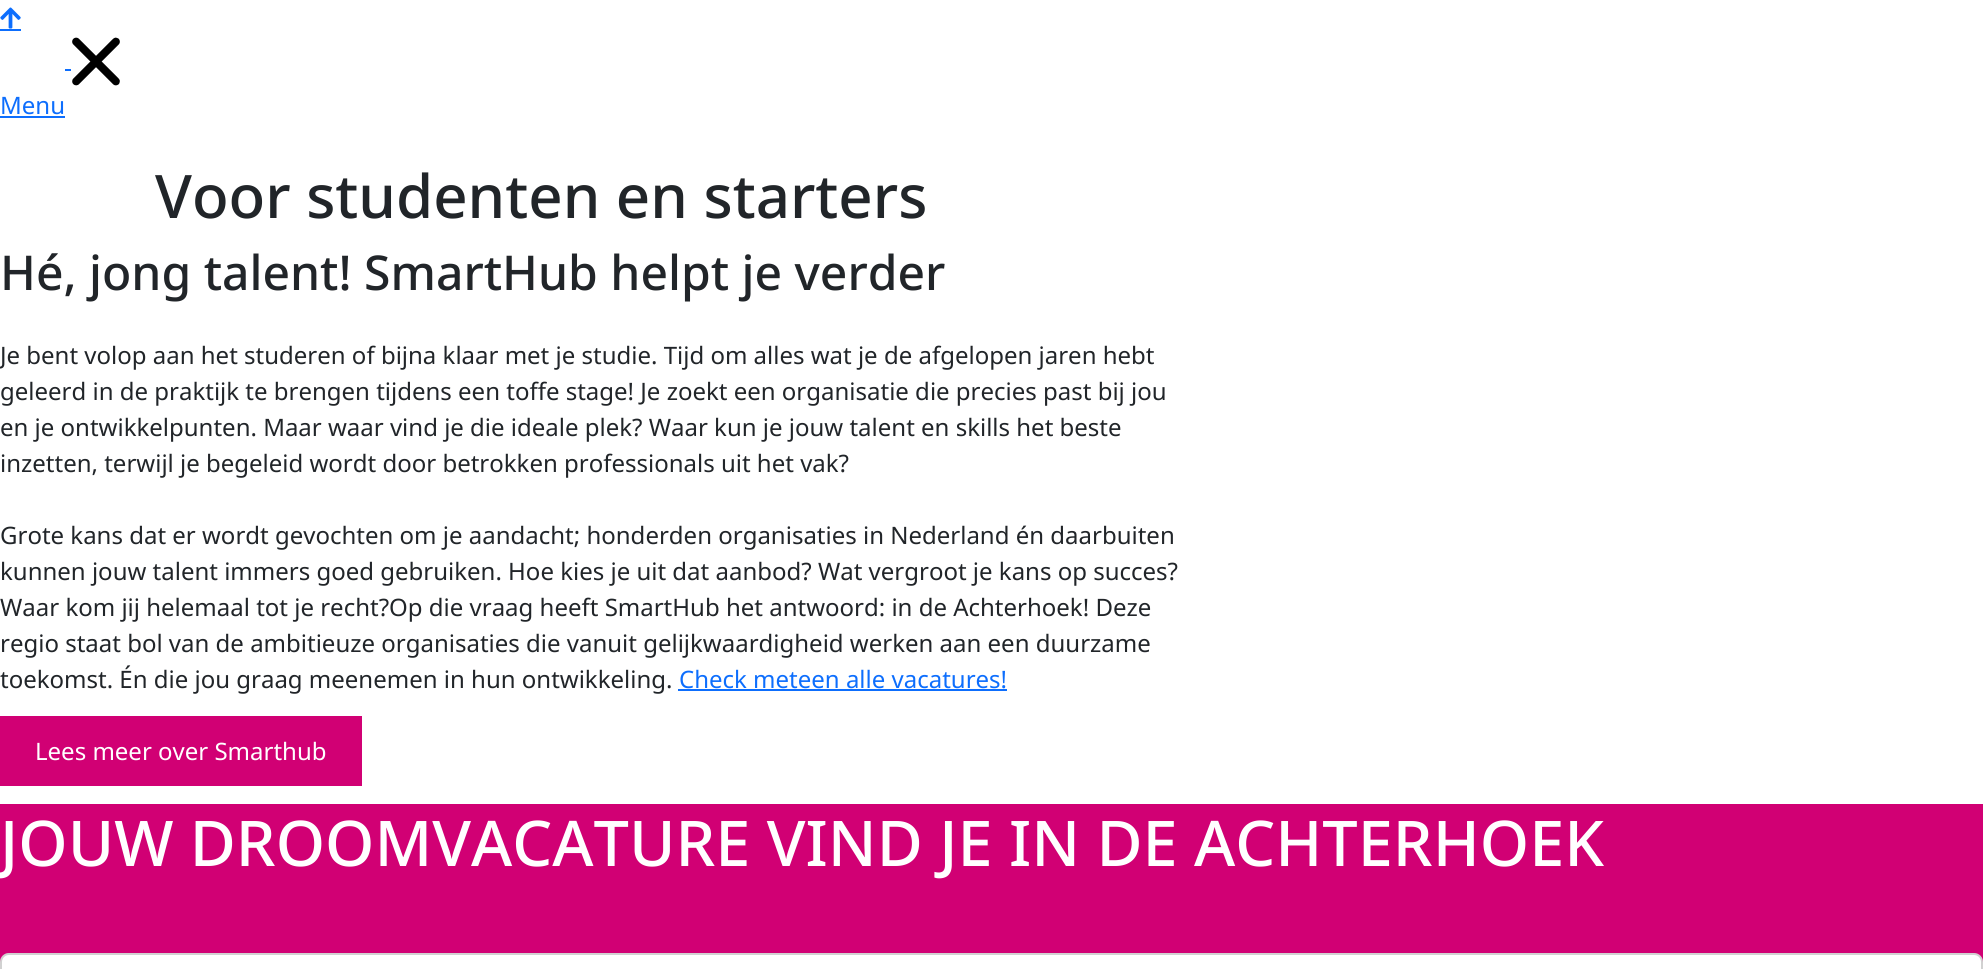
import math
import cairo

surface = cairo.ImageSurface(cairo.FORMAT_RGB24, 1983, 969)
ctx = cairo.Context(surface)
options = cairo.FontOptions()
options.set_hint_metrics(cairo.HINT_METRICS_OFF)
options.set_hint_style(cairo.HINT_STYLE_NONE)
ctx.set_font_options(options)
ctx.set_miter_limit(4)


def round_rect(x, y, w, h, r):
    ctx.new_sub_path()
    for i, (u, v) in enumerate([(x + w - r, y + h - r), (x + r, y + h - r), (x + r, y + r), (x + w - r, y + r)]):
        ctx.arc(u, v, r, i * math.pi / 2, (i + 1) * math.pi / 2)
    ctx.close_path()


def picture(path, x, y, w, h):
    ctx.save()
    ctx.set_source_surface(cairo.ImageSurface.create_from_png(path), x, y)
    ctx.rectangle(x, y, w, h)
    ctx.fill()
    ctx.restore()


ctx.set_source_rgb(1, 1, 1)
ctx.paint()
picture("img1.png", 0, 7, 21, 22)
ctx.set_source_rgb(0.051, 0.431, 0.992)
ctx.rectangle(0, 29, 21, 2)
ctx.fill()
ctx.rectangle(65, 69, 6, 2)
ctx.fill()
picture("img2.png", 72, 37, 48, 49)
ctx.select_font_face("Noto Sans")
ctx.set_font_size(24)
ctx.move_to(0, 114)
ctx.show_text("Menu")
ctx.rectangle(0, 116, 65, 2)
ctx.fill()
ctx.select_font_face("Noto Sans Medium")
ctx.set_font_size(60)
ctx.set_source_rgb(0.129, 0.145, 0.161)
ctx.move_to(155, 218)
ctx.show_text("Voor studenten en starters")
ctx.set_font_size(48)
ctx.move_to(0, 290)
ctx.show_text("Hé, jong talent! SmartHub helpt je verder")
ctx.select_font_face("Noto Sans")
ctx.set_font_size(24)
ctx.move_to(0, 364)
ctx.show_text("Je bent volop aan het studeren of bijna klaar met je studie. Tijd om alles wat je de afgelopen jaren hebt")
ctx.move_to(0, 400)
ctx.show_text("geleerd in de praktijk te brengen tijdens een toffe stage! Je zoekt een organisatie die precies past bij jou")
ctx.move_to(0, 436)
ctx.show_text("en je ontwikkelpunten. Maar waar vind je die ideale plek? Waar kun je jouw talent en skills het beste")
ctx.move_to(0, 472)
ctx.show_text("inzetten, terwijl je begeleid wordt door betrokken professionals uit het vak?")
ctx.move_to(0, 544)
ctx.show_text("Grote kans dat er wordt gevochten om je aandacht; honderden organisaties in Nederland én daarbuiten")
ctx.move_to(0, 580)
ctx.show_text("kunnen jouw talent immers goed gebruiken. Hoe kies je uit dat aanbod? Wat vergroot je kans op succes?")
ctx.move_to(0, 616)
ctx.show_text("Waar kom jij helemaal tot je recht?Op die vraag heeft SmartHub het antwoord: in de Achterhoek! Deze")
ctx.move_to(0, 652)
ctx.show_text("regio staat bol van de ambitieuze organisaties die vanuit gelijkwaardigheid werken aan een duurzame")
ctx.move_to(0, 688)
ctx.show_text("toekomst. Én die jou graag meenemen in hun ontwikkeling.")
ctx.set_source_rgb(0.051, 0.431, 0.992)
ctx.move_to(679, 688)
ctx.show_text("Check meteen alle vacatures!")
ctx.rectangle(678, 689, 329, 2)
ctx.fill()
ctx.set_source_rgb(0.82, 0, 0.455)
ctx.rectangle(0, 716, 362, 70)
ctx.fill()
ctx.set_source_rgb(1, 1, 1)
ctx.move_to(35, 760)
ctx.show_text("Lees meer over Smarthub")
ctx.set_source_rgb(0.82, 0, 0.455)
ctx.rectangle(0, 804, 1983, 158)
ctx.fill()
ctx.select_font_face("Noto Sans Medium")
ctx.set_font_size(63)
ctx.set_source_rgb(1, 1, 1)
ctx.move_to(0, 866)
ctx.show_text("JOUW DROOMVACATURE VIND JE IN DE ACHTERHOEK")
round_rect(0, 953, 1983, 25, 9)
ctx.fill()
round_rect(1, 954, 1981, 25, 8)
ctx.set_source_rgba(0, 0, 0, 0.18)
ctx.stroke()
surface.write_to_png("page.png")
